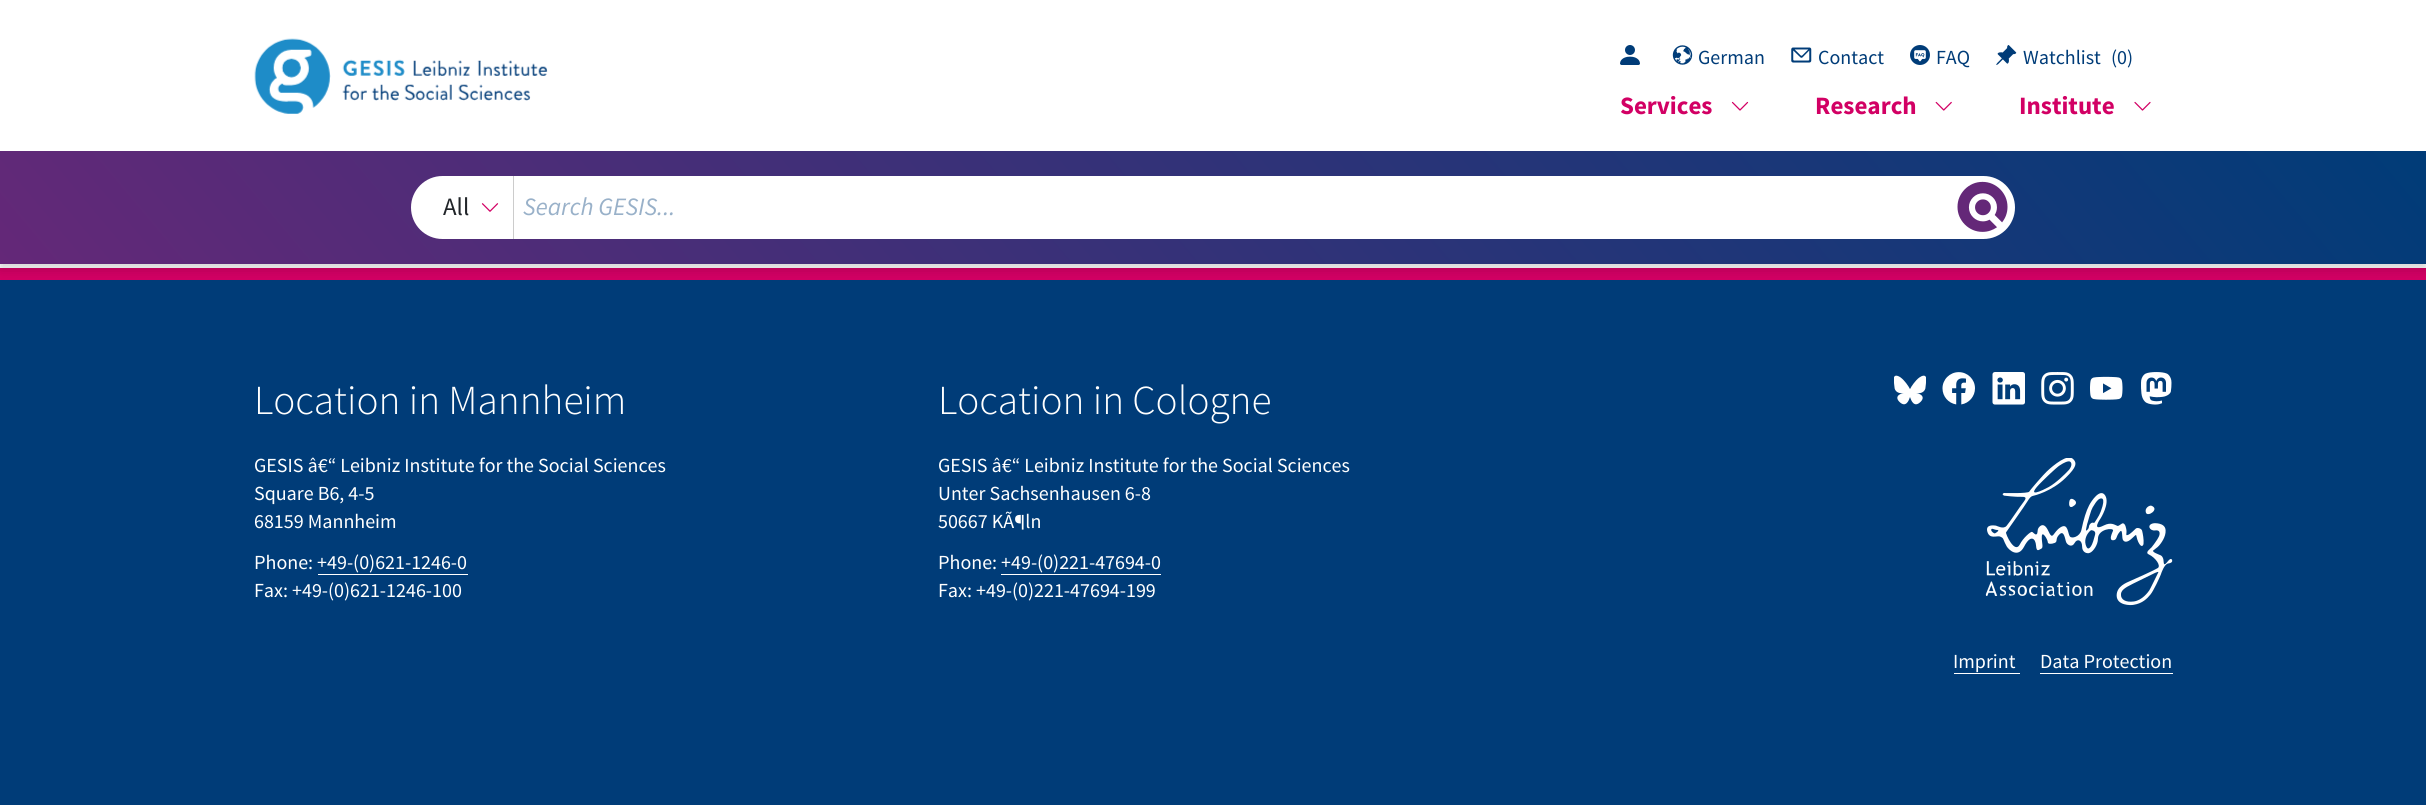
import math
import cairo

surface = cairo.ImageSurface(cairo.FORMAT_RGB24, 2426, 805)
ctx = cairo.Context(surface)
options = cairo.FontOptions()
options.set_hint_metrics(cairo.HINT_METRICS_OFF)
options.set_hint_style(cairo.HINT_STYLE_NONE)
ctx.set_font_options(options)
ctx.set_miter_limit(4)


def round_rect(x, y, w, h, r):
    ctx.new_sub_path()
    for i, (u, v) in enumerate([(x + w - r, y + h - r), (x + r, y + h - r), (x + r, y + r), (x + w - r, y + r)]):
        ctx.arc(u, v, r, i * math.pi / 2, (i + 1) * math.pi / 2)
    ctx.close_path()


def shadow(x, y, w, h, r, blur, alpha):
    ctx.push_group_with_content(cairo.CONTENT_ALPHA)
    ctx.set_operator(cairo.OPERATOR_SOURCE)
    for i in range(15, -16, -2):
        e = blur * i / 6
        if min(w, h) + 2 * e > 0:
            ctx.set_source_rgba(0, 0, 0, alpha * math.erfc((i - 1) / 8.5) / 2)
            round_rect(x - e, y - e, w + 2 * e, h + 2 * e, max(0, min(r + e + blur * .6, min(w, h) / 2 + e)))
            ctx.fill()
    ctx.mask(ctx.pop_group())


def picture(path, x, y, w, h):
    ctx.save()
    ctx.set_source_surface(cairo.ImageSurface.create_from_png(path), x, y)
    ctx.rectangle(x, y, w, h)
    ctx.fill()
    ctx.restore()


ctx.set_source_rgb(1, 1, 1)
ctx.paint()
ctx.set_source_rgb(0, 0.235, 0.471)
ctx.rectangle(0, 280, 2426, 525)
ctx.fill()
ctx.set_source_rgb(0.824, 0, 0.392)
ctx.rectangle(0, 268, 2426, 12)
ctx.fill()
ctx.set_source_rgb(0, 0, 0)
shadow(0, 5, 2426, 264, 0, 6, 0.18)
ctx.set_source_rgb(1, 1, 1)
ctx.rectangle(0, 0, 2426, 151)
ctx.fill()
picture("img1.png", 254, 38, 294, 76)
picture("img2.png", 1620, 45, 20, 20)
picture("img3.png", 1672, 45, 21, 20)
ctx.select_font_face("Source Sans Pro")
ctx.set_font_size(20)
ctx.set_source_rgb(0, 0.235, 0.471)
ctx.move_to(1698, 64)
ctx.show_text("German")
picture("img4.png", 1791, 47, 21, 16)
ctx.move_to(1818, 64)
ctx.show_text("Contact")
picture("img5.png", 1910, 45, 20, 20)
ctx.move_to(1936, 64)
ctx.show_text("FAQ")
picture("img6.png", 1996, 45, 21, 20)
ctx.move_to(2023, 64)
ctx.show_text("Watchlist")
ctx.move_to(2111, 64)
ctx.show_text("(0)")
ctx.select_font_face("Source Sans Pro", cairo.FONT_SLANT_NORMAL, cairo.FONT_WEIGHT_BOLD)
ctx.set_font_size(25)
ctx.set_source_rgb(0.824, 0, 0.392)
ctx.move_to(1620, 114)
ctx.show_text("Services")
picture("img7.png", 1731, 101, 18, 10)
ctx.move_to(1815, 114)
ctx.show_text("Research")
picture("img8.png", 1935, 101, 17, 10)
ctx.move_to(2019, 114)
ctx.show_text("Institute")
picture("img9.png", 2134, 101, 17, 10)
gradient = cairo.LinearGradient(474, 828, 1953, -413)
gradient.add_color_stop_rgba(0, 0.392, 0.157, 0.471, 1)
gradient.add_color_stop_rgba(1, 0, 0.235, 0.471, 1)
ctx.set_source(gradient)
ctx.rectangle(0, 151, 2426, 113)
ctx.fill()
ctx.set_source_rgb(1, 1, 1)
round_rect(411, 176, 1604, 63, 31.5)
ctx.fill()
picture("img10.png", 481, 203, 18, 9)
ctx.set_source_rgb(0.8, 0.8, 0.8)
ctx.rectangle(513, 176, 1, 63)
ctx.fill()
ctx.select_font_face("Source Sans Pro")
ctx.set_source_rgb(0.129, 0.145, 0.161)
ctx.move_to(443, 215)
ctx.show_text("All")
ctx.select_font_face("Source Sans Pro", cairo.FONT_SLANT_ITALIC)
ctx.set_source_rgb(0.6, 0.694, 0.788)
ctx.move_to(523, 215)
ctx.show_text("Search GESIS...")
picture("img11.png", 1957, 181, 51, 51)
ctx.select_font_face("Source Sans Pro Light")
ctx.set_font_size(41.25)
ctx.set_source_rgb(1, 1, 1)
ctx.move_to(254, 414)
ctx.show_text("Location in Mannheim")
ctx.select_font_face("Source Sans Pro")
ctx.set_font_size(20)
ctx.move_to(254, 472)
ctx.show_text("GESIS â€“ Leibniz Institute for the Social Sciences")
ctx.move_to(254, 500)
ctx.show_text("Square B6, 4-5")
ctx.move_to(254, 528)
ctx.show_text("68159 Mannheim")
ctx.move_to(254, 569)
ctx.show_text("Phone: +49-(0)621-1246-0")
ctx.rectangle(318, 574, 150, 1)
ctx.fill()
ctx.move_to(254, 597)
ctx.show_text("Fax: +49-(0)621-1246-100")
ctx.select_font_face("Source Sans Pro Light")
ctx.set_font_size(41.25)
ctx.move_to(938, 414)
ctx.show_text("Location in Cologne")
ctx.select_font_face("Source Sans Pro")
ctx.set_font_size(20)
ctx.move_to(938, 472)
ctx.show_text("GESIS â€“ Leibniz Institute for the Social Sciences")
ctx.move_to(938, 500)
ctx.show_text("Unter Sachsenhausen 6-8")
ctx.move_to(938, 528)
ctx.show_text("50667 KÃ¶ln")
ctx.move_to(938, 569)
ctx.show_text("Phone: +49-(0)221-47694-0")
ctx.rectangle(1001, 574, 160, 1)
ctx.fill()
ctx.move_to(938, 597)
ctx.show_text("Fax: +49-(0)221-47694-199")
picture("img12.png", 1894, 375, 32, 30)
picture("img13.png", 1942, 372, 33, 33)
picture("img14.png", 1992, 372, 33, 33)
picture("img15.png", 2041, 372, 33, 33)
picture("img16.png", 2090, 376, 33, 24)
picture("img17.png", 2141, 372, 31, 33)
picture("img18.png", 1985, 458, 188, 148)
ctx.move_to(1953, 668)
ctx.show_text("Imprint")
ctx.rectangle(1954, 673, 66, 1)
ctx.fill()
ctx.move_to(2040, 668)
ctx.show_text("Data Protection")
ctx.rectangle(2040, 673, 133, 1)
ctx.fill()
surface.write_to_png("page.png")
